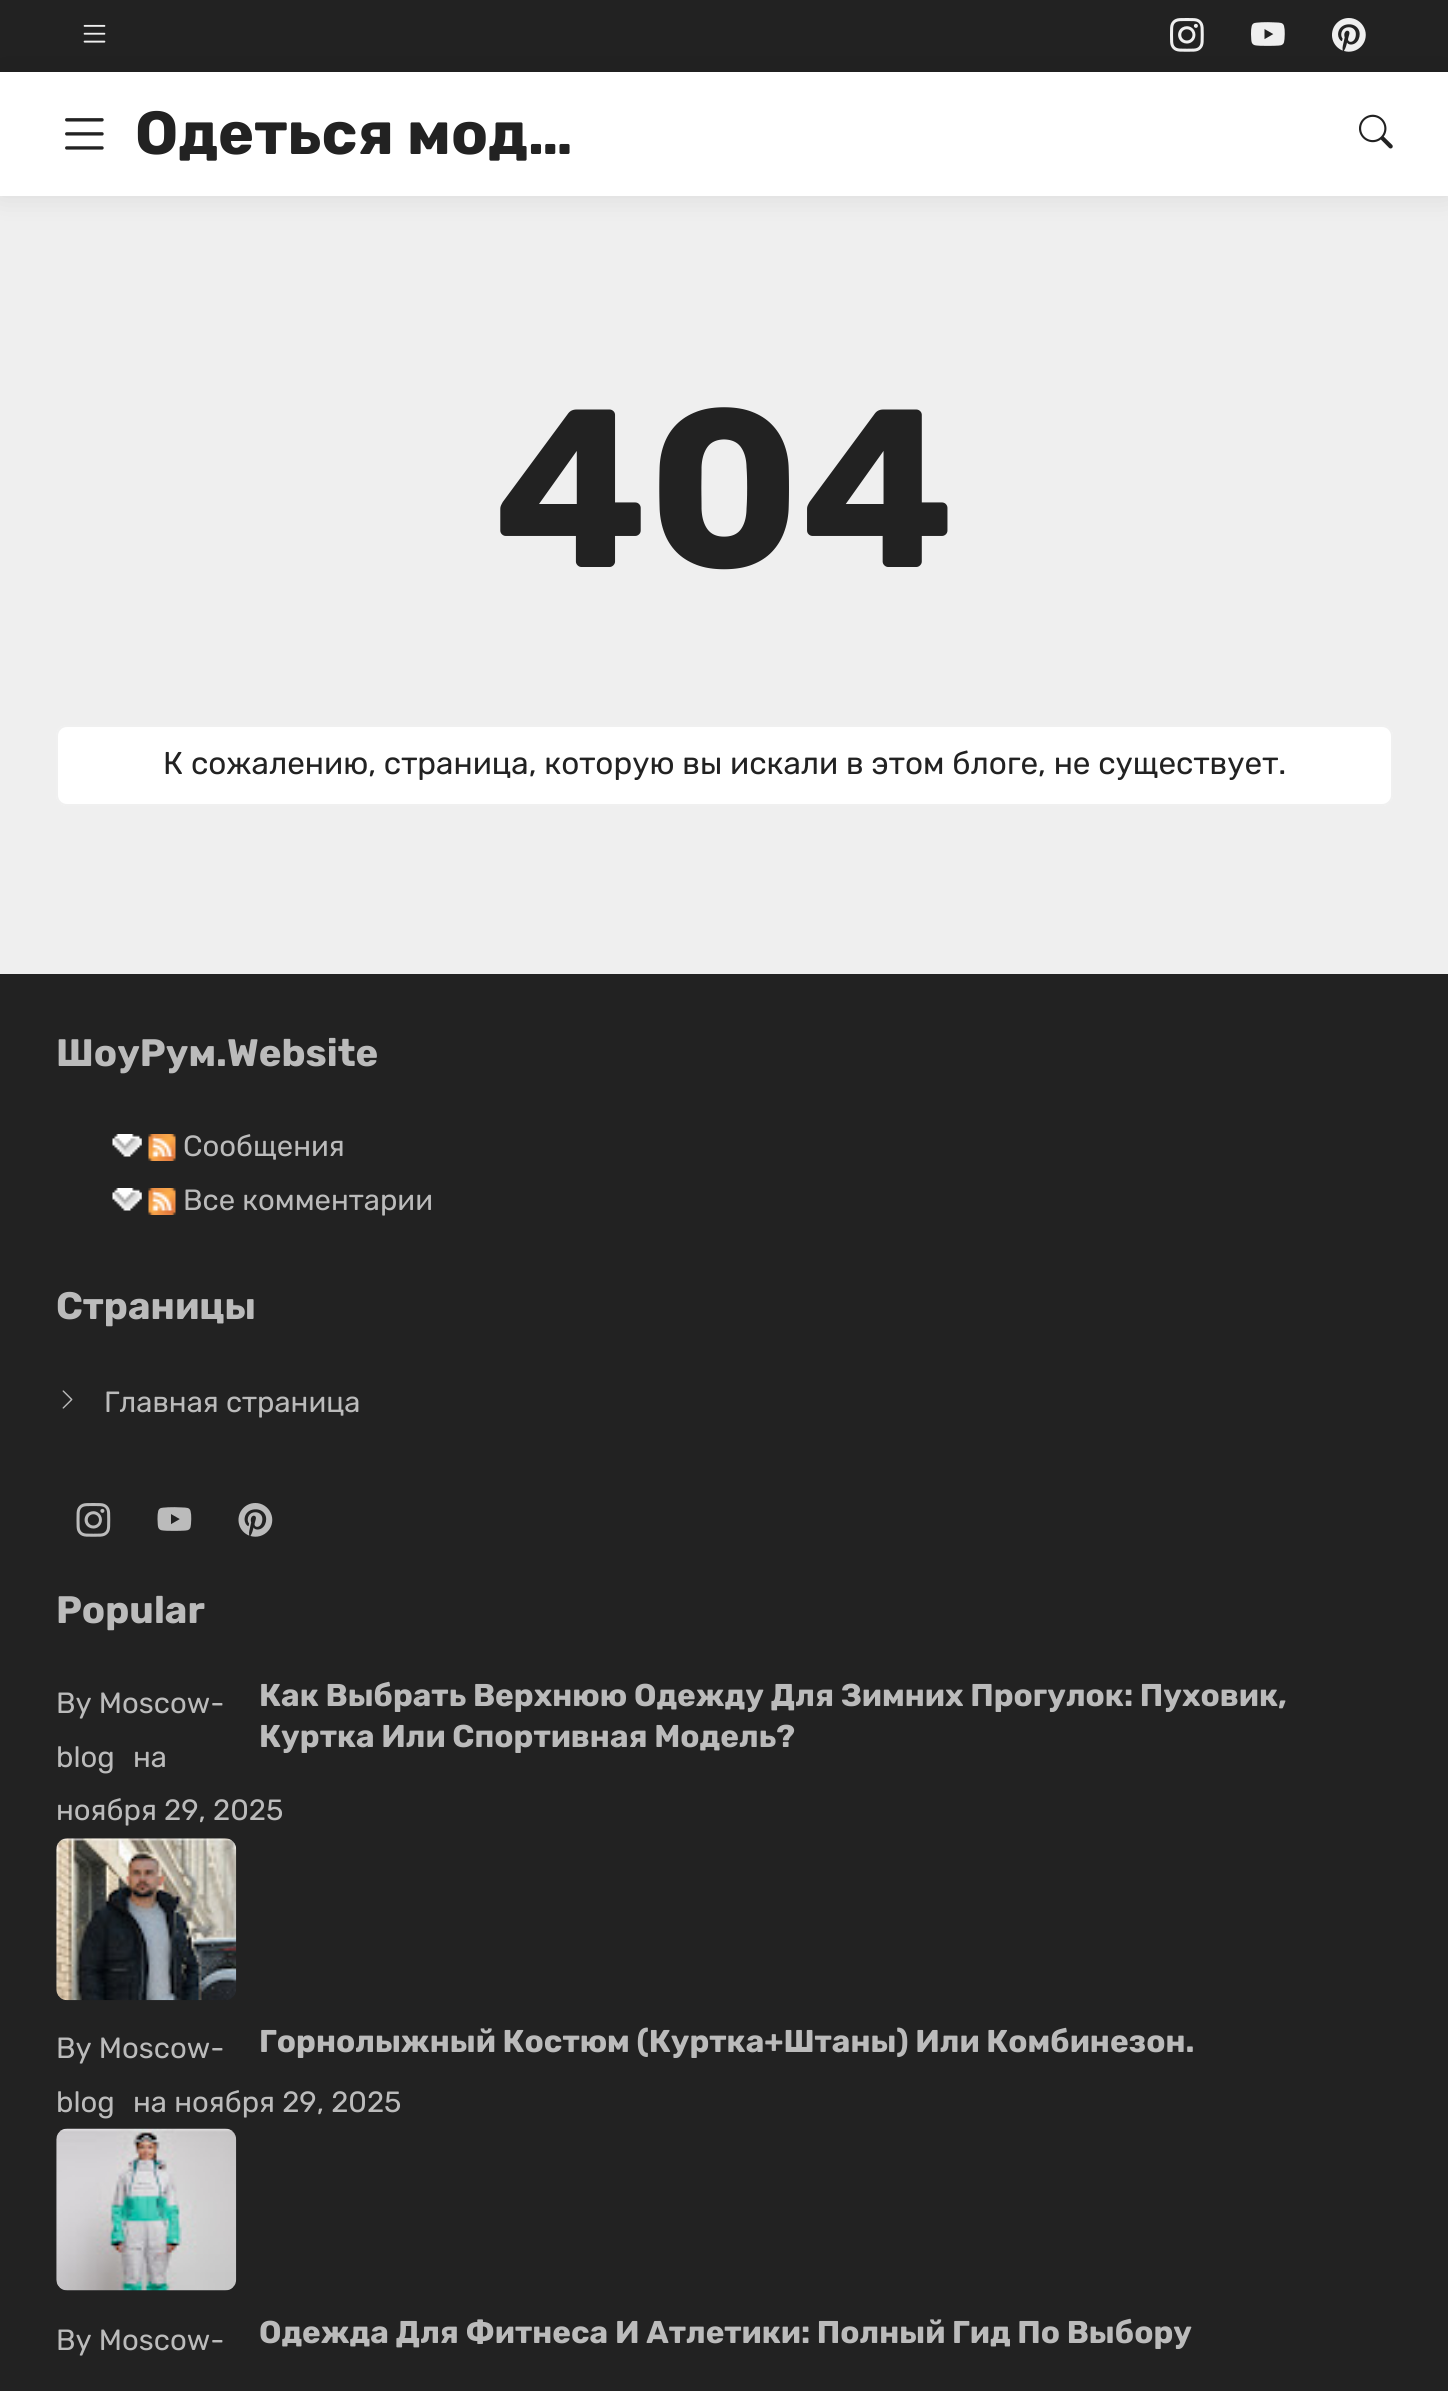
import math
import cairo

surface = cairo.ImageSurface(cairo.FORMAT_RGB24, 1448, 2391)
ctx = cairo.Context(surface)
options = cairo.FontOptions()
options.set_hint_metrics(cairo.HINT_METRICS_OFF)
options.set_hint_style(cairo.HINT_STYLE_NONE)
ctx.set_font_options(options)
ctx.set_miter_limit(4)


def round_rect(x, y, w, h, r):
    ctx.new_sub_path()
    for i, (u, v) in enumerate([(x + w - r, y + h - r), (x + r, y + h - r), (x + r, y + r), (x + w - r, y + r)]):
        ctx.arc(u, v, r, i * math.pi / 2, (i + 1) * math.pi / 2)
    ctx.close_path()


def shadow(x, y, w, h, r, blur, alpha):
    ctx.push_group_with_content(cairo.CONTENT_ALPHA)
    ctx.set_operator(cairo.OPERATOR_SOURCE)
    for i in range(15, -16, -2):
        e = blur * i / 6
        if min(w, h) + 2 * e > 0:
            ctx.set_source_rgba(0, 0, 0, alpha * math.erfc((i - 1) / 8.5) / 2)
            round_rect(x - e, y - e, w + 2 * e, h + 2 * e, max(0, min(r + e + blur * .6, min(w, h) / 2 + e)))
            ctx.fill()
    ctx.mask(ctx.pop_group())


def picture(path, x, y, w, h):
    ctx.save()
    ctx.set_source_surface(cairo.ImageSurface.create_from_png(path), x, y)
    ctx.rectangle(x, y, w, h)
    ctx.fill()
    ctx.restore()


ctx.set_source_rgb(0.937, 0.937, 0.937)
ctx.paint()
ctx.set_source_rgb(0.133, 0.133, 0.133)
ctx.rectangle(0, 0, 1448, 72)
ctx.fill()
picture("img1.png", 83, 24, 23, 19)
picture("img2.png", 1170, 18, 34, 34)
picture("img3.png", 1251, 22, 34, 24)
picture("img4.png", 1332, 18, 34, 34)
ctx.set_source_rgb(0, 0, 0)
shadow(0, 72, 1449, 124, 0, 13.5, 0.1)
ctx.set_source_rgb(1, 1, 1)
ctx.rectangle(0, 72, 1448, 124)
ctx.fill()
picture("img5.png", 65, 118, 39, 32)
ctx.select_font_face("Rubik", cairo.FONT_SLANT_NORMAL, cairo.FONT_WEIGHT_BOLD)
ctx.set_font_size(60.75)
ctx.set_source_rgb(0.133, 0.133, 0.133)
ctx.move_to(135, 154)
ctx.show_text("Одеться мод…")
picture("img6.png", 1359, 114, 34, 35)
ctx.set_font_size(225)
ctx.move_to(494, 567)
ctx.show_text("404")
ctx.set_source_rgb(1, 1, 1)
round_rect(56, 725, 1337, 81, 11)
ctx.fill()
round_rect(57, 726, 1335, 79, 10)
ctx.set_source_rgba(0.608, 0.608, 0.608, 0.15)
ctx.stroke()
ctx.select_font_face("Rubik")
ctx.set_font_size(31.5)
ctx.set_source_rgb(0.133, 0.133, 0.133)
ctx.move_to(163, 774)
ctx.show_text("К сожалению, страница, которую вы искали в этом блоге, не существует.")
ctx.rectangle(0, 974, 1448, 1417)
ctx.fill()
ctx.select_font_face("Rubik", cairo.FONT_SLANT_NORMAL, cairo.FONT_WEIGHT_BOLD)
ctx.set_font_size(38.25)
ctx.set_source_rgb(0.733, 0.733, 0.733)
ctx.move_to(56, 1066)
ctx.show_text("ШоуРум.Website")
picture("img7.png", 112, 1134, 30, 23)
picture("img8.png", 148, 1134, 28, 27)
ctx.select_font_face("Rubik")
ctx.set_font_size(29.25)
ctx.move_to(183, 1156)
ctx.show_text("Сообщения")
picture("img7.png", 112, 1188, 30, 23)
picture("img8.png", 148, 1188, 28, 27)
ctx.move_to(183, 1210)
ctx.show_text("Все комментарии")
ctx.select_font_face("Rubik", cairo.FONT_SLANT_NORMAL, cairo.FONT_WEIGHT_BOLD)
ctx.set_font_size(38.25)
ctx.move_to(56, 1319)
ctx.show_text("Страницы")
picture("img9.png", 62, 1390, 11, 19)
ctx.select_font_face("Rubik")
ctx.set_font_size(29.25)
ctx.move_to(104, 1412)
ctx.show_text("Главная страница")
picture("img10.png", 76, 1503, 35, 34)
picture("img11.png", 157, 1507, 35, 24)
picture("img12.png", 238, 1503, 35, 34)
ctx.select_font_face("Rubik", cairo.FONT_SLANT_NORMAL, cairo.FONT_WEIGHT_BOLD)
ctx.set_font_size(38.25)
ctx.move_to(56, 1623)
ctx.show_text("Popular")
ctx.select_font_face("Rubik")
ctx.set_font_size(29.25)
ctx.move_to(56, 1713)
ctx.show_text("By Moscow-")
ctx.move_to(56, 1767)
ctx.show_text("blog")
ctx.move_to(133, 1767)
ctx.show_text("на")
ctx.move_to(56, 1820)
ctx.show_text("ноября 29, 2025")
ctx.select_font_face("Rubik", cairo.FONT_SLANT_NORMAL, cairo.FONT_WEIGHT_BOLD)
ctx.set_font_size(31.5)
ctx.move_to(259, 1706)
ctx.show_text("Как Выбрать Верхнюю Одежду Для Зимних Прогулок: Пуховик,")
ctx.move_to(259, 1747)
ctx.show_text("Куртка Или Спортивная Модель?")
picture("img13.png", 56, 1838, 181, 163)
ctx.select_font_face("Rubik")
ctx.set_font_size(29.25)
ctx.move_to(56, 2058)
ctx.show_text("By Moscow-")
ctx.move_to(56, 2112)
ctx.show_text("blog")
ctx.move_to(133, 2112)
ctx.show_text("на ноября 29, 2025")
ctx.select_font_face("Rubik", cairo.FONT_SLANT_NORMAL, cairo.FONT_WEIGHT_BOLD)
ctx.set_font_size(31.5)
ctx.move_to(259, 2052)
ctx.show_text("Горнолыжный Костюм (Куртка+Штаны) Или Комбинезон.")
picture("img14.png", 56, 2128, 181, 163)
ctx.select_font_face("Rubik")
ctx.set_font_size(29.25)
ctx.move_to(56, 2350)
ctx.show_text("By Moscow-")
ctx.select_font_face("Rubik", cairo.FONT_SLANT_NORMAL, cairo.FONT_WEIGHT_BOLD)
ctx.set_font_size(31.5)
ctx.move_to(259, 2343)
ctx.show_text("Одежда Для Фитнеса И Атлетики: Полный Гид По Выбору")
surface.write_to_png("page.png")
